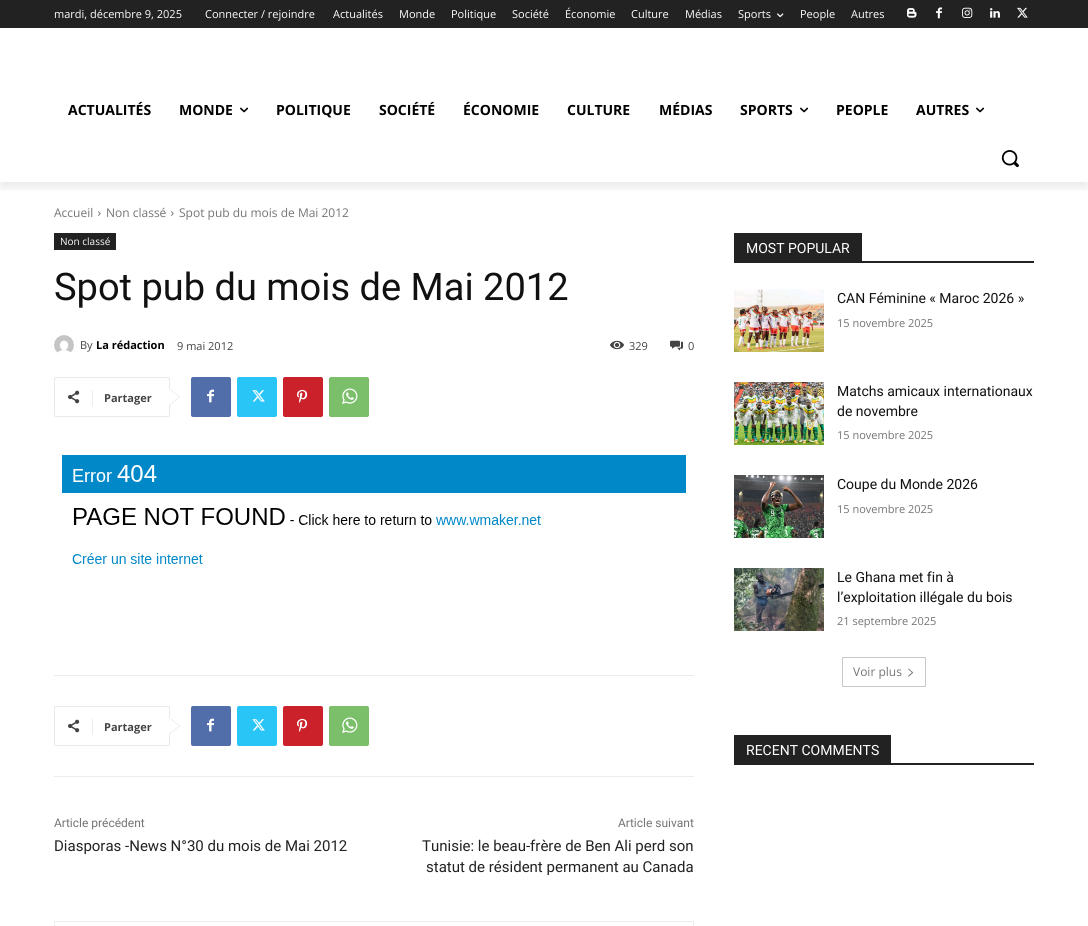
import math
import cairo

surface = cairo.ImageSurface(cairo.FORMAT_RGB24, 1088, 926)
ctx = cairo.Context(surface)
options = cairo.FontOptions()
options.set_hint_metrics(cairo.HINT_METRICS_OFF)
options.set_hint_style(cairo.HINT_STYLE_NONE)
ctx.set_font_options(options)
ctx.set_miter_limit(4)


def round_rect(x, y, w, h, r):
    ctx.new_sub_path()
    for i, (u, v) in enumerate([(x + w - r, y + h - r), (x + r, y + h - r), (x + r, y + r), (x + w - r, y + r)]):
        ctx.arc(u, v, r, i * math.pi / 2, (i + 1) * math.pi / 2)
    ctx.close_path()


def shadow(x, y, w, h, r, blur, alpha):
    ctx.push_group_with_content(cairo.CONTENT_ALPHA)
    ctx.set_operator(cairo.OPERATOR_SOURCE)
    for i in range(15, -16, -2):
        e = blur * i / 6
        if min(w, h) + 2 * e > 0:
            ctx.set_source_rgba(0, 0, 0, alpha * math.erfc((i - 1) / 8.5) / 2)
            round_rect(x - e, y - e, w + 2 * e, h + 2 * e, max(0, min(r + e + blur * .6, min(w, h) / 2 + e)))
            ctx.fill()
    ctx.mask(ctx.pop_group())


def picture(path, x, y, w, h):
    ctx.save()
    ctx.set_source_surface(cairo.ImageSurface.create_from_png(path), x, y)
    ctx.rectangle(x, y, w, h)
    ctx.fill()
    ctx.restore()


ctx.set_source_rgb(1, 1, 1)
ctx.paint()
ctx.set_source_rgb(0.133, 0.133, 0.133)
ctx.rectangle(0, 0, 1088, 28)
ctx.fill()
picture("img2.png", 907, 8, 10, 10)
picture("img3.png", 936, 7, 6, 12)
picture("img4.png", 962, 7, 11, 11)
picture("img5.png", 990, 8, 10, 10)
picture("img6.png", 1017, 7, 11, 11)
ctx.save()
ctx.rectangle(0, 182, 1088, 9)
ctx.clip()
ctx.set_source_rgb(0, 0, 0)
shadow(0, 6, 1088, 182, 0, 4, 0.08)
ctx.restore()
ctx.select_font_face("Open Sans")
ctx.set_font_size(11)
ctx.set_source_rgb(1, 1, 1)
ctx.move_to(54, 18)
ctx.show_text("mardi, décembre 9, 2025")
ctx.move_to(205, 18)
ctx.show_text("Connecter / rejoindre")
ctx.move_to(333, 18)
ctx.show_text("Actualités")
ctx.move_to(399, 18)
ctx.show_text("Monde")
ctx.move_to(451, 18)
ctx.show_text("Politique")
ctx.move_to(512, 18)
ctx.show_text("Société")
ctx.move_to(565, 18)
ctx.show_text("Économie")
ctx.move_to(631, 18)
ctx.show_text("Culture")
ctx.move_to(685, 18)
ctx.show_text("Médias")
ctx.move_to(738, 18)
ctx.show_text("Sports")
picture("img1.png", 777, 13, 7, 5)
ctx.move_to(800, 18)
ctx.show_text("People")
ctx.move_to(851, 18)
ctx.show_text("Autres")
ctx.select_font_face("Open Sans", cairo.FONT_SLANT_NORMAL, cairo.FONT_WEIGHT_BOLD)
ctx.set_font_size(14)
ctx.set_source_rgb(0, 0, 0)
ctx.move_to(68, 115)
ctx.show_text("ACTUALITÉS")
ctx.move_to(179, 115)
ctx.show_text("MONDE")
picture("img7.png", 240, 107, 9, 6)
ctx.move_to(276, 115)
ctx.show_text("POLITIQUE")
ctx.move_to(379, 115)
ctx.show_text("SOCIÉTÉ")
ctx.move_to(463, 115)
ctx.show_text("ÉCONOMIE")
ctx.move_to(567, 115)
ctx.show_text("CULTURE")
ctx.move_to(659, 115)
ctx.show_text("MÉDIAS")
ctx.move_to(740, 115)
ctx.show_text("SPORTS")
picture("img7.png", 800, 107, 9, 6)
ctx.move_to(836, 115)
ctx.show_text("PEOPLE")
ctx.move_to(916, 115)
ctx.show_text("AUTRES")
picture("img7.png", 976, 107, 9, 6)
picture("img8.png", 1001, 150, 18, 18)
ctx.select_font_face("Open Sans")
ctx.set_font_size(12)
ctx.set_source_rgb(0.455, 0.455, 0.455)
ctx.move_to(54, 217)
ctx.show_text("Accueil")
picture("img9.png", 98, 211, 3, 5)
ctx.move_to(106, 217)
ctx.show_text("Non classé")
picture("img9.png", 171, 211, 3, 5)
ctx.move_to(179, 217)
ctx.show_text("Spot pub du mois de Mai 2012")
ctx.set_source_rgb(0.133, 0.133, 0.133)
ctx.rectangle(54, 233, 62, 17)
ctx.fill()
ctx.set_font_size(10)
ctx.set_source_rgb(1, 1, 1)
ctx.move_to(60, 245)
ctx.show_text("Non classé")
ctx.select_font_face("Roboto")
ctx.set_font_size(38)
ctx.set_source_rgb(0.067, 0.067, 0.067)
ctx.move_to(54, 300)
ctx.show_text("Spot pub du mois de Mai 2012")
picture("img10.png", 54, 335, 20, 18)
ctx.select_font_face("Open Sans")
ctx.set_font_size(11)
ctx.set_source_rgb(0.267, 0.267, 0.267)
ctx.move_to(80, 349)
ctx.show_text("By")
ctx.select_font_face("Open Sans", cairo.FONT_SLANT_NORMAL, cairo.FONT_WEIGHT_BOLD)
ctx.set_source_rgb(0, 0, 0)
ctx.move_to(96, 349)
ctx.show_text("La rédaction")
ctx.select_font_face("Open Sans")
ctx.set_source_rgb(0.267, 0.267, 0.267)
ctx.move_to(177, 350)
ctx.show_text("9 mai 2012")
picture("img11.png", 610, 340, 14, 10)
ctx.move_to(629, 350)
ctx.show_text("329")
picture("img12.png", 670, 340, 13, 11)
ctx.move_to(688, 350)
ctx.show_text("0")
round_rect(54.5, 377.5, 115, 39, 1.5)
ctx.set_source_rgb(0.914, 0.914, 0.914)
ctx.set_line_width(1)
ctx.stroke()
ctx.new_path()
ctx.move_to(169, 406)
ctx.line_to(169, 388)
ctx.line_to(180, 397)
ctx.close_path()
ctx.fill()
picture("img13.png", 68, 390, 12, 14)
ctx.set_source_rgb(0.922, 0.922, 0.922)
ctx.rectangle(92, 390, 1, 16)
ctx.fill()
ctx.select_font_face("Open Sans", cairo.FONT_SLANT_NORMAL, cairo.FONT_WEIGHT_BOLD)
ctx.set_source_rgb(0.267, 0.267, 0.267)
ctx.move_to(104, 402)
ctx.show_text("Partager")
ctx.set_source_rgb(1, 1, 1)
ctx.new_path()
ctx.move_to(169, 405)
ctx.line_to(169, 389)
ctx.line_to(179, 397)
ctx.close_path()
ctx.fill()
ctx.set_source_rgb(0.318, 0.431, 0.671)
round_rect(191, 377, 40, 40, 2)
ctx.fill()
picture("img14.png", 207, 389, 7, 14)
ctx.set_source_rgb(0.161, 0.773, 0.965)
round_rect(237, 377, 40, 40, 2)
ctx.fill()
picture("img15.png", 252, 390, 13, 12)
ctx.set_source_rgb(0.792, 0.129, 0.165)
round_rect(283, 377, 40, 40, 2)
ctx.fill()
picture("img16.png", 297, 389, 11, 14)
ctx.set_source_rgb(0.482, 0.749, 0.416)
round_rect(329, 377, 40, 40, 2)
ctx.fill()
picture("img17.png", 342, 388, 16, 16)
picture("img18.png", 62, 455, 624, 109)
ctx.set_source_rgb(0.922, 0.922, 0.922)
ctx.rectangle(54, 675, 640, 1)
ctx.fill()
round_rect(54.5, 706.5, 115, 39, 1.5)
ctx.set_source_rgb(0.914, 0.914, 0.914)
ctx.stroke()
ctx.new_path()
ctx.move_to(169, 735)
ctx.line_to(169, 717)
ctx.line_to(180, 726)
ctx.close_path()
ctx.fill()
picture("img13.png", 68, 719, 12, 14)
ctx.set_source_rgb(0.922, 0.922, 0.922)
ctx.rectangle(92, 719, 1, 16)
ctx.fill()
ctx.set_source_rgb(0.267, 0.267, 0.267)
ctx.move_to(104, 731)
ctx.show_text("Partager")
ctx.set_source_rgb(1, 1, 1)
ctx.new_path()
ctx.move_to(169, 734)
ctx.line_to(169, 718)
ctx.line_to(179, 726)
ctx.close_path()
ctx.fill()
ctx.set_source_rgb(0.318, 0.431, 0.671)
round_rect(191, 706, 40, 40, 2)
ctx.fill()
picture("img14.png", 207, 718, 7, 14)
ctx.set_source_rgb(0.161, 0.773, 0.965)
round_rect(237, 706, 40, 40, 2)
ctx.fill()
picture("img15.png", 252, 719, 13, 12)
ctx.set_source_rgb(0.792, 0.129, 0.165)
round_rect(283, 706, 40, 40, 2)
ctx.fill()
picture("img16.png", 297, 718, 11, 14)
ctx.set_source_rgb(0.482, 0.749, 0.416)
round_rect(329, 706, 40, 40, 2)
ctx.fill()
picture("img17.png", 342, 717, 16, 16)
ctx.set_source_rgb(0.922, 0.922, 0.922)
ctx.rectangle(54, 776, 640, 1)
ctx.fill()
ctx.select_font_face("Roboto")
ctx.set_font_size(12)
ctx.set_source_rgb(0.455, 0.455, 0.455)
ctx.move_to(54, 827)
ctx.show_text("Article précédent")
ctx.set_font_size(15)
ctx.set_source_rgb(0.133, 0.133, 0.133)
ctx.move_to(54, 851)
ctx.show_text("Diasporas -News N°30 du mois de Mai 2012")
ctx.set_font_size(12)
ctx.set_source_rgb(0.455, 0.455, 0.455)
ctx.move_to(618, 827)
ctx.show_text("Article suivant")
ctx.set_font_size(15)
ctx.set_source_rgb(0.133, 0.133, 0.133)
ctx.move_to(422, 851)
ctx.show_text("Tunisie: le beau-frère de Ben Ali perd son")
ctx.move_to(426, 872)
ctx.show_text("statut de résident permanent au Canada")
ctx.rectangle(54.5, 921.5, 639, 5)
ctx.set_source_rgb(0.929, 0.929, 0.929)
ctx.stroke()
ctx.set_source_rgb(0.133, 0.133, 0.133)
ctx.rectangle(734, 261, 300, 2)
ctx.fill()
ctx.rectangle(734, 233, 128, 28)
ctx.fill()
ctx.set_font_size(14)
ctx.set_source_rgb(1, 1, 1)
ctx.move_to(746, 253)
ctx.show_text("MOST POPULAR")
picture("img19.png", 734, 289, 90, 63)
ctx.set_source_rgb(0.067, 0.067, 0.067)
ctx.move_to(837, 303)
ctx.show_text("CAN Féminine « Maroc 2026 »")
ctx.select_font_face("Open Sans")
ctx.set_font_size(11)
ctx.set_source_rgb(0.455, 0.455, 0.455)
ctx.move_to(837, 327)
ctx.show_text("15 novembre 2025")
picture("img20.png", 734, 382, 90, 63)
ctx.select_font_face("Roboto")
ctx.set_font_size(14)
ctx.set_source_rgb(0.067, 0.067, 0.067)
ctx.move_to(837, 396)
ctx.show_text("Matchs amicaux internationaux")
ctx.move_to(837, 416)
ctx.show_text("de novembre")
ctx.select_font_face("Open Sans")
ctx.set_font_size(11)
ctx.set_source_rgb(0.455, 0.455, 0.455)
ctx.move_to(837, 439)
ctx.show_text("15 novembre 2025")
picture("img21.png", 734, 475, 90, 63)
ctx.select_font_face("Roboto")
ctx.set_font_size(14)
ctx.set_source_rgb(0.067, 0.067, 0.067)
ctx.move_to(837, 489)
ctx.show_text("Coupe du Monde 2026")
ctx.select_font_face("Open Sans")
ctx.set_font_size(11)
ctx.set_source_rgb(0.455, 0.455, 0.455)
ctx.move_to(837, 513)
ctx.show_text("15 novembre 2025")
picture("img22.png", 734, 568, 90, 63)
ctx.select_font_face("Roboto")
ctx.set_font_size(14)
ctx.set_source_rgb(0.067, 0.067, 0.067)
ctx.move_to(837, 582)
ctx.show_text("Le Ghana met fin à")
ctx.move_to(837, 602)
ctx.show_text("l’exploitation illégale du bois")
ctx.select_font_face("Open Sans")
ctx.set_font_size(11)
ctx.set_source_rgb(0.455, 0.455, 0.455)
ctx.move_to(837, 625)
ctx.show_text("21 septembre 2025")
ctx.rectangle(842.5, 657.5, 83, 29)
ctx.set_source_rgb(0.788, 0.788, 0.788)
ctx.stroke()
ctx.set_font_size(12)
ctx.set_source_rgb(0.455, 0.455, 0.455)
ctx.move_to(853, 676)
ctx.show_text("Voir plus")
picture("img23.png", 908, 668, 6, 9)
ctx.set_source_rgb(0.133, 0.133, 0.133)
ctx.rectangle(734, 763, 300, 2)
ctx.fill()
ctx.rectangle(734, 735, 157, 28)
ctx.fill()
ctx.select_font_face("Roboto")
ctx.set_font_size(14)
ctx.set_source_rgb(1, 1, 1)
ctx.move_to(746, 755)
ctx.show_text("RECENT COMMENTS")
surface.write_to_png("page.png")
